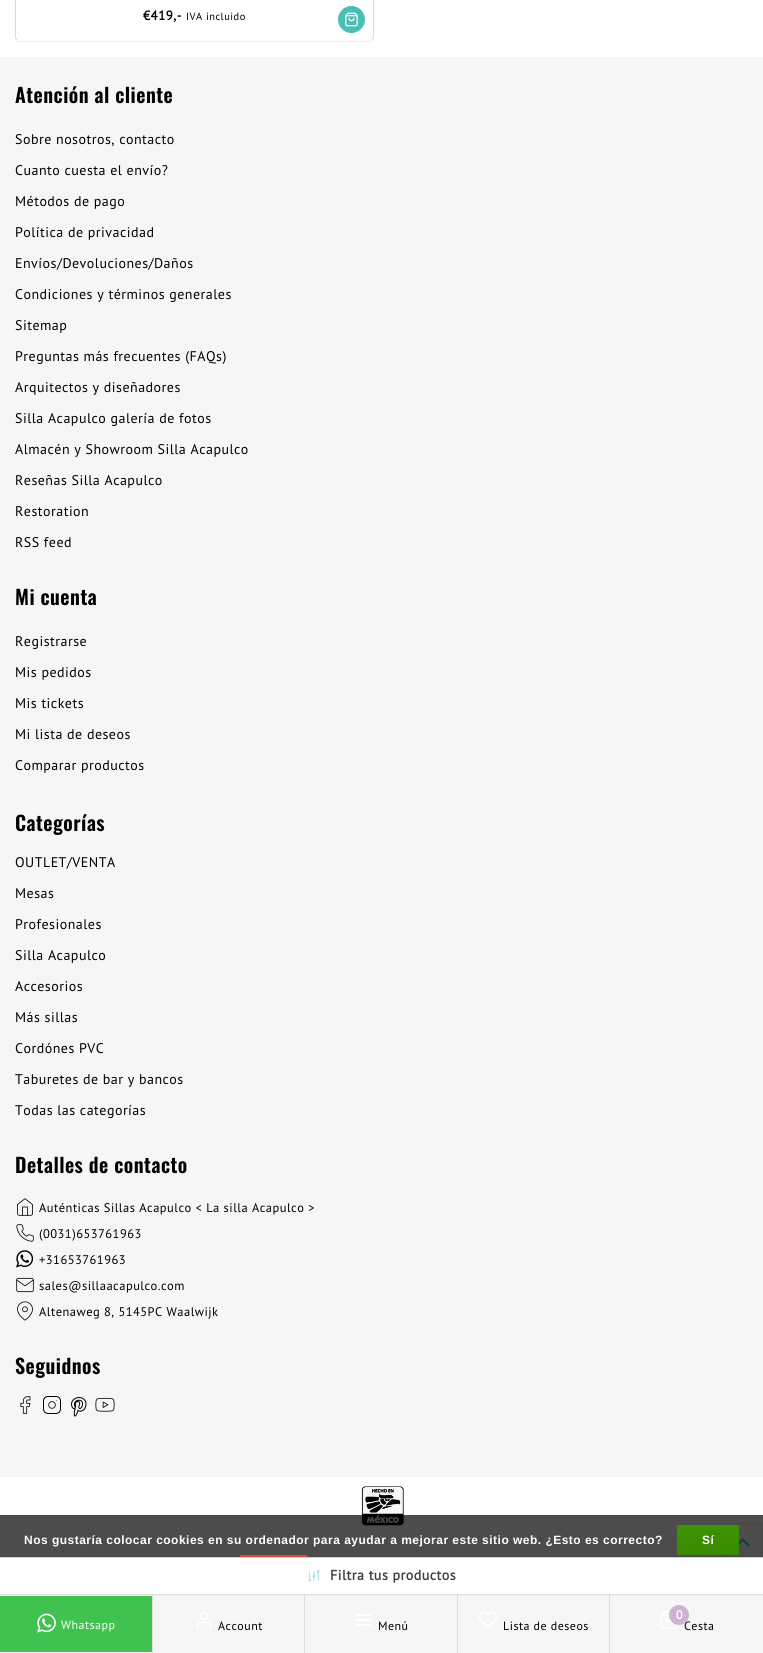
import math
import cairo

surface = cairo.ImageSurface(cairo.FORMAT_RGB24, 763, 1653)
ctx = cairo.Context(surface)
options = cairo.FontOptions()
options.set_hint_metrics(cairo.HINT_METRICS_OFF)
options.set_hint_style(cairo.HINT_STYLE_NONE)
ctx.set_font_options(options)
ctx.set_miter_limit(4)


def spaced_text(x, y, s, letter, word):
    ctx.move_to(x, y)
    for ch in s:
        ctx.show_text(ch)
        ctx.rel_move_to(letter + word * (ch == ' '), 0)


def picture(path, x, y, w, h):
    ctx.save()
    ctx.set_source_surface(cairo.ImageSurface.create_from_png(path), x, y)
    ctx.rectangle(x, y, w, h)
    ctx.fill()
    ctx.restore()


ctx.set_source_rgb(1, 1, 1)
ctx.paint()
ctx.new_path()
ctx.move_to(372, 40)
ctx.curve_to(371.5, 41, 370, 41.5, 369, 41.5)
ctx.line_to(20, 41.5)
ctx.curve_to(19, 41.5, 17.5, 41, 17, 40)
ctx.set_source_rgb(0.933, 0.933, 0.933)
ctx.set_line_width(1)
ctx.stroke()
ctx.new_path()
ctx.move_to(17, 40)
ctx.curve_to(16, 39.5, 15.5, 38, 15.5, 37)
ctx.line_to(15.5, -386)
ctx.curve_to(15.5, -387, 16, -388.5, 17, -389)
ctx.curve_to(17.5, -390, 19, -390.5, 20, -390.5)
ctx.line_to(369, -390.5)
ctx.curve_to(370, -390.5, 371.5, -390, 372, -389)
ctx.curve_to(373, -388.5, 373.5, -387, 373.5, -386)
ctx.line_to(373.5, 37)
ctx.curve_to(373.5, 38, 373, 39.5, 372, 40)
ctx.set_source_rgb(0.855, 0.855, 0.863)
ctx.stroke()
ctx.select_font_face("PT Sans", cairo.FONT_SLANT_NORMAL, cairo.FONT_WEIGHT_BOLD)
ctx.set_font_size(13)
ctx.set_source_rgb(0, 0, 0)
spaced_text(143, 20, "€419,-", 0.48, 0)
ctx.select_font_face("PT Sans")
ctx.set_font_size(10.5)
spaced_text(186, 20, "IVA incluido", 0.48, 0)
ctx.set_source_rgb(0.298, 0.737, 0.718)
ctx.new_path()
ctx.arc(351.5, 19.5, 13, 0, 2 * math.pi)
ctx.fill_preserve()
ctx.stroke()
picture("img1.png", 345, 12, 13, 15)
ctx.set_source_rgb(0.961, 0.961, 0.961)
ctx.rectangle(0, 57, 763, 1420)
ctx.fill()
ctx.select_font_face("Oswald SemiBold")
ctx.set_font_size(20)
ctx.set_source_rgb(0, 0, 0)
spaced_text(15, 103, "Atención al cliente", 0.48, 0)
ctx.select_font_face("PT Sans")
ctx.set_font_size(14)
spaced_text(15, 144, "Sobre nosotros, contacto", 0.48, 0)
spaced_text(15, 175, "Cuanto cuesta el envío?", 0.48, 0)
spaced_text(15, 206, "Métodos de pago", 0.48, 0)
spaced_text(15, 237, "Política de privacidad", 0.48, 0)
spaced_text(15, 268, "Envíos/Devoluciones/Daños", 0.48, 0)
spaced_text(15, 299, "Condiciones y términos generales", 0.48, 0)
spaced_text(15, 330, "Sitemap", 0.48, 0)
spaced_text(15, 361, "Preguntas más frecuentes (FAQs)", 0.48, 0)
spaced_text(15, 392, "Arquitectos y diseñadores", 0.48, 0)
spaced_text(15, 423, "Silla Acapulco galería de fotos", 0.48, 0)
spaced_text(15, 454, "Almacén y Showroom Silla Acapulco", 0.48, 0)
spaced_text(15, 485, "Reseñas Silla Acapulco", 0.48, 0)
spaced_text(15, 516, "Restoration", 0.48, 0)
spaced_text(15, 547, "RSS feed", 0.48, 0)
ctx.select_font_face("Oswald SemiBold")
ctx.set_font_size(20)
spaced_text(15, 605, "Mi cuenta", 0.48, 0)
ctx.select_font_face("PT Sans")
ctx.set_font_size(14)
spaced_text(15, 646, "Registrarse", 0.48, 0)
spaced_text(15, 677, "Mis pedidos", 0.48, 0)
spaced_text(15, 708, "Mis tickets", 0.48, 0)
spaced_text(15, 739, "Mi lista de deseos", 0.48, 0)
spaced_text(15, 770, "Comparar productos", 0.48, 0)
ctx.select_font_face("Oswald SemiBold")
ctx.set_font_size(20)
spaced_text(15, 831, "Categorías", 0.48, 0)
ctx.select_font_face("PT Sans")
ctx.set_font_size(14)
spaced_text(15, 867, "OUTLET/VENTA", 0.48, 0)
spaced_text(15, 898, "Mesas", 0.48, 0)
spaced_text(15, 929, "Profesionales", 0.48, 0)
spaced_text(15, 960, "Silla Acapulco", 0.48, 0)
spaced_text(15, 991, "Accesorios", 0.48, 0)
spaced_text(15, 1022, "Más sillas", 0.48, 0)
spaced_text(15, 1053, "Cordónes PVC", 0.48, 0)
spaced_text(15, 1084, "Taburetes de bar y bancos", 0.48, 0)
spaced_text(15, 1115, "Todas las categorías", 0.48, 0)
ctx.select_font_face("Oswald SemiBold")
ctx.set_font_size(20)
spaced_text(15, 1173, "Detalles de contacto", 0.48, 0)
picture("img2.png", 17, 1198, 16, 18)
ctx.select_font_face("PT Sans")
ctx.set_font_size(12.5)
spaced_text(39, 1212, "Auténticas Sillas Acapulco < La silla Acapulco >", 0.48, 0)
picture("img3.png", 16, 1224, 18, 18)
spaced_text(39, 1238, "(0031)653761963", 0.48, 0)
picture("img4.png", 16, 1250, 18, 18)
spaced_text(39, 1264, "+31653761963", 0.48, 0)
picture("img5.png", 16, 1277, 18, 16)
spaced_text(39, 1290, "sales@sillaacapulco.com", 0.48, 0)
picture("img6.png", 17, 1301, 16, 20)
spaced_text(39, 1316, "Altenaweg 8, 5145PC Waalwijk", 0.48, 0)
ctx.select_font_face("Oswald SemiBold")
ctx.set_font_size(20)
spaced_text(15, 1374, "Seguidnos", 0.48, 0)
picture("img7.png", 20, 1396, 11, 18)
picture("img8.png", 43, 1396, 18, 18)
picture("img9.png", 71, 1397, 16, 20)
picture("img10.png", 95, 1397, 20, 15)
picture("img11.png", 361, 1486, 43, 40)
ctx.rectangle(723.5, 1523.5, 39, 39)
ctx.set_source_rgb(0.933, 0.933, 0.933)
ctx.stroke()
picture("img12.png", 739, 1538, 11, 9)
ctx.set_source_rgba(0, 0, 0, 0.7)
ctx.rectangle(0, 1515, 763, 42)
ctx.fill()
ctx.select_font_face("Liberation Sans", cairo.FONT_SLANT_NORMAL, cairo.FONT_WEIGHT_BOLD)
ctx.set_font_size(12)
ctx.set_source_rgb(1, 1, 1)
spaced_text(24, 1544, "Nos gustaría colocar cookies en su ordenador para ayudar a mejorar este sitio web. ¿Esto es correcto?", 0.48, 0)
gradient = cairo.LinearGradient(708, 1525, 708, 1555)
gradient.add_color_stop_rgba(0, 0.235, 0.576, 0, 1)
gradient.add_color_stop_rgba(1, 0.224, 0.541, 0, 1)
ctx.set_source(gradient)
ctx.rectangle(677, 1525, 62, 30)
ctx.fill()
ctx.set_source_rgb(1, 1, 1)
spaced_text(702, 1544, "Sí", 0.48, 0)
gradient = cairo.LinearGradient(274, 1555, 274, 1585)
gradient.add_color_stop_rgba(0, 0.863, 0.29, 0.22, 1)
gradient.add_color_stop_rgba(1, 0.82, 0.282, 0.212, 1)
ctx.set_source(gradient)
ctx.rectangle(240, 1555, 67, 2)
ctx.fill()
ctx.set_source_rgb(1, 1, 1)
ctx.rectangle(723, 1558, 40, 5)
ctx.fill()
ctx.set_source_rgb(0.8, 0.8, 0.8)
ctx.rectangle(0, 1557, 763, 1)
ctx.fill()
picture("img13.png", 308, 1570, 12, 12)
ctx.select_font_face("PT Sans", cairo.FONT_SLANT_NORMAL, cairo.FONT_WEIGHT_BOLD)
ctx.set_font_size(14)
ctx.set_source_rgb(0.255, 0.255, 0.255)
spaced_text(330, 1580, "Filtra tus productos", 0.48, 0)
ctx.set_source_rgb(0.961, 0.961, 0.961)
ctx.rectangle(0, 1595, 152, 58)
ctx.fill()
ctx.set_source_rgb(0.867, 0.867, 0.867)
ctx.rectangle(0, 1594, 763, 1)
ctx.fill()
ctx.rectangle(152, 1594, 1, 59)
ctx.fill()
ctx.set_source_rgb(0.247, 0.761, 0.314)
ctx.rectangle(0, 1596, 152, 56)
ctx.fill()
picture("img14.png", 37, 1613, 19, 20)
ctx.select_font_face("PT Sans")
ctx.set_font_size(12)
ctx.set_source_rgb(1, 1, 1)
spaced_text(61, 1629, "Whatsapp", 0.48, 0)
ctx.set_source_rgb(0.961, 0.961, 0.961)
ctx.rectangle(153, 1595, 151, 58)
ctx.fill()
ctx.set_source_rgb(0.867, 0.867, 0.867)
ctx.rectangle(304, 1594, 1, 59)
ctx.fill()
picture("img15.png", 196, 1612, 16, 16)
ctx.set_source_rgb(0, 0, 0)
spaced_text(218, 1630, "Account", 0.48, 0)
ctx.set_source_rgb(0.961, 0.961, 0.961)
ctx.rectangle(305, 1595, 152, 58)
ctx.fill()
ctx.set_source_rgb(0.867, 0.867, 0.867)
ctx.rectangle(457, 1594, 1, 59)
ctx.fill()
picture("img16.png", 355, 1614, 16, 12)
ctx.set_source_rgb(0, 0, 0)
spaced_text(378, 1630, "Menú", 0.48, 0)
ctx.set_source_rgb(0.961, 0.961, 0.961)
ctx.rectangle(458, 1595, 151, 58)
ctx.fill()
ctx.set_source_rgb(0.867, 0.867, 0.867)
ctx.rectangle(609, 1594, 1, 59)
ctx.fill()
picture("img17.png", 478, 1612, 20, 16)
ctx.set_source_rgb(0, 0, 0)
spaced_text(503, 1630, "Lista de deseos", 0.48, 0)
ctx.set_source_rgb(0.961, 0.961, 0.961)
ctx.rectangle(610, 1595, 153, 58)
ctx.fill()
picture("img18.png", 660, 1611, 18, 18)
ctx.set_source_rgb(0, 0, 0)
spaced_text(684, 1630, "Cesta", 0.48, 0)
ctx.set_source_rgb(0.808, 0.702, 0.835)
ctx.new_path()
ctx.arc(679, 1615, 10, 0, 2 * math.pi)
ctx.fill()
ctx.select_font_face("PT Sans", cairo.FONT_SLANT_NORMAL, cairo.FONT_WEIGHT_BOLD)
ctx.set_source_rgb(1, 1, 1)
spaced_text(676, 1619, "0", 0.48, 0)
surface.write_to_png("page.png")
